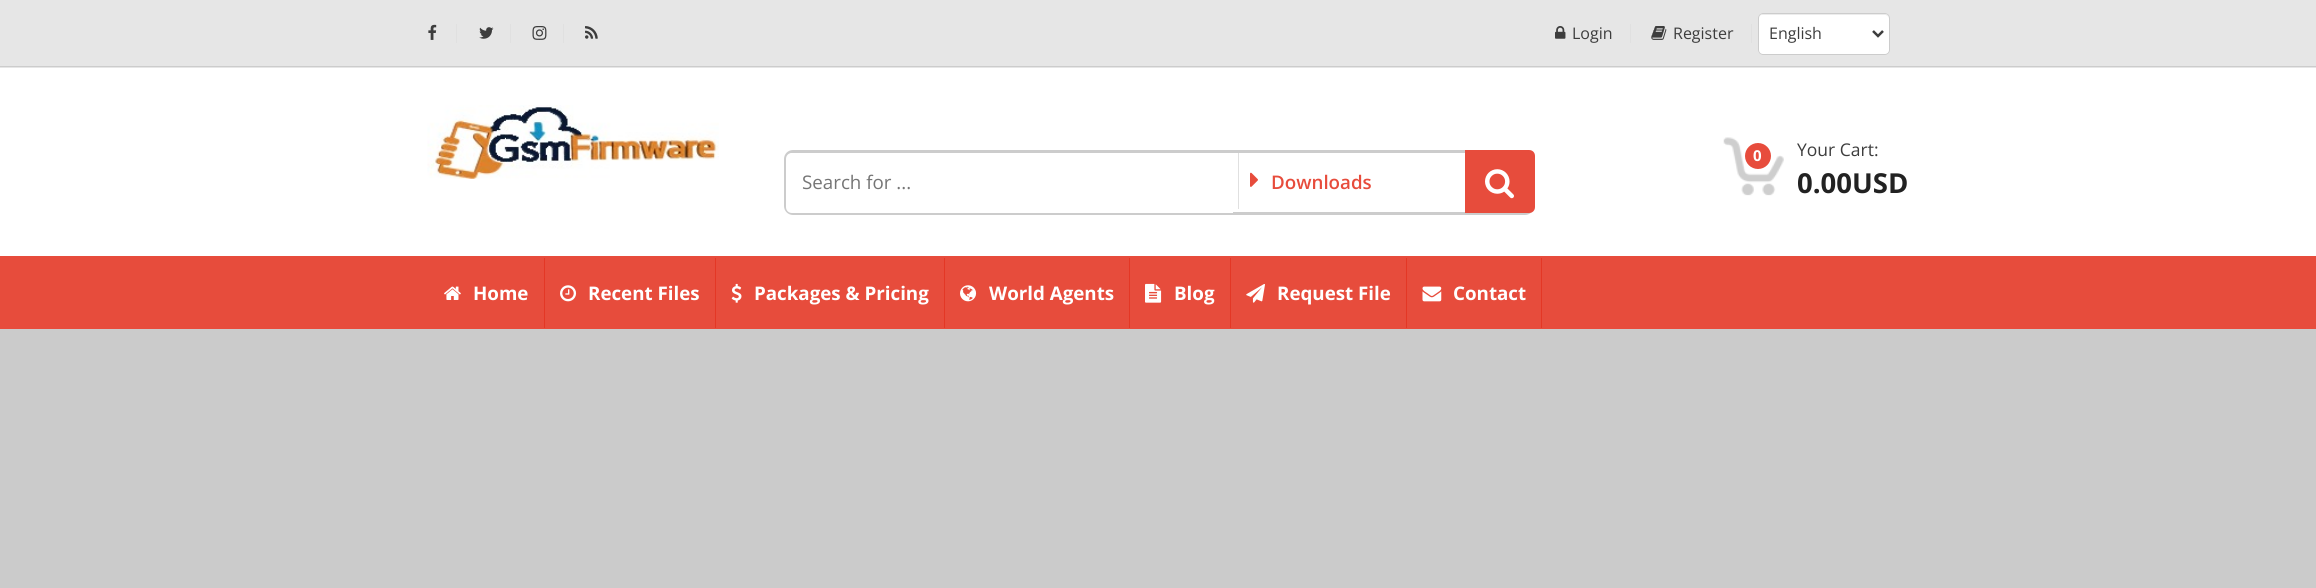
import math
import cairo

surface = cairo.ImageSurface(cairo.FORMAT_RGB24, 2316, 588)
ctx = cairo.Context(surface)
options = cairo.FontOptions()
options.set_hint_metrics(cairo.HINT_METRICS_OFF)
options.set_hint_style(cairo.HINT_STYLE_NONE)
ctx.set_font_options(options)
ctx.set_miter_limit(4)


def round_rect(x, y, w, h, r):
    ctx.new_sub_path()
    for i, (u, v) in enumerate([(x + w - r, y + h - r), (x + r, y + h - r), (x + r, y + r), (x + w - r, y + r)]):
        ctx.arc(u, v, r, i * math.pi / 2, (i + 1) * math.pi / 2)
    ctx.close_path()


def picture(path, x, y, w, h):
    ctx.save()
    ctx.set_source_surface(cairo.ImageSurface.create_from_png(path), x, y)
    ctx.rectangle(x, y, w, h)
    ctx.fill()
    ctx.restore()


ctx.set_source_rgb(1, 1, 1)
ctx.paint()
ctx.set_source_rgb(0.902, 0.902, 0.902)
ctx.rectangle(0, 0, 2316, 68)
ctx.fill()
ctx.set_source_rgb(0.8, 0.8, 0.8)
ctx.rectangle(0, 66, 2316, 1)
ctx.fill()
ctx.set_source_rgb(0.878, 0.878, 0.878)
ctx.rectangle(456, 24, 1, 19)
ctx.fill()
picture("img1.png", 428, 24, 9, 16)
ctx.rectangle(510, 24, 1, 19)
ctx.fill()
picture("img2.png", 479, 27, 15, 12)
ctx.rectangle(563, 24, 1, 19)
ctx.fill()
picture("img3.png", 532, 26, 15, 14)
picture("img4.png", 585, 26, 13, 13)
ctx.rectangle(1630, 24, 1, 19)
ctx.fill()
picture("img5.png", 1555, 26, 11, 13)
ctx.select_font_face("Open Sans")
ctx.set_font_size(16)
ctx.set_source_rgb(0.239, 0.239, 0.239)
ctx.move_to(1572, 39)
ctx.show_text("Login")
ctx.set_source_rgb(0.878, 0.878, 0.878)
ctx.rectangle(1751, 24, 1, 19)
ctx.fill()
picture("img6.png", 1651, 26, 16, 14)
ctx.set_source_rgb(0.239, 0.239, 0.239)
ctx.move_to(1673, 39)
ctx.show_text("Register")
ctx.set_source_rgb(1, 1, 1)
round_rect(1758, 13, 132, 42, 5)
ctx.fill()
ctx.set_source_rgb(0.925, 0.925, 0.925)
ctx.new_path()
ctx.move_to(1762, 15)
ctx.line_to(1885, 15)
ctx.curve_to(1887, 15, 1889, 17, 1889, 19)
ctx.line_to(1889, 18)
ctx.curve_to(1889, 16, 1887, 14, 1885, 14)
ctx.line_to(1763, 14)
ctx.curve_to(1761, 14, 1759, 16, 1759, 18)
ctx.line_to(1759, 19)
ctx.curve_to(1759, 17, 1760, 15, 1762, 15)
ctx.close_path()
ctx.fill()
round_rect(1758.5, 13.5, 131, 41, 4.5)
ctx.set_source_rgb(0.8, 0.8, 0.8)
ctx.set_line_width(1)
ctx.stroke()
ctx.new_path()
ctx.move_to(1873, 31)
ctx.line_to(1878, 36)
ctx.line_to(1883, 31)
ctx.set_source_rgb(0.239, 0.239, 0.239)
ctx.set_line_width(2.5)
ctx.stroke()
ctx.move_to(1769, 39)
ctx.show_text("English")
picture("img7.png", 427, 105, 292, 74)
round_rect(785.5, 151.5, 747, 62, 7.5)
ctx.set_source_rgb(0.8, 0.8, 0.8)
ctx.set_line_width(3)
ctx.stroke()
ctx.set_source_rgb(1, 1, 1)
ctx.new_path()
ctx.move_to(792, 153)
ctx.line_to(1233, 153)
ctx.line_to(1233, 213)
ctx.line_to(792, 213)
ctx.curve_to(788.5, 213, 786, 210.5, 786, 207)
ctx.line_to(786, 159)
ctx.curve_to(786, 155.5, 788.5, 153, 792, 153)
ctx.close_path()
ctx.fill()
ctx.set_font_size(18.75)
ctx.set_source_rgb(0.459, 0.459, 0.459)
ctx.move_to(802, 189)
ctx.show_text("Search for ...")
ctx.set_source_rgb(0.878, 0.878, 0.878)
ctx.rectangle(1238, 153, 1, 56)
ctx.fill()
picture("img8.png", 1250, 172, 8, 15)
ctx.select_font_face("Open Sans SemiBold")
ctx.set_source_rgb(0.906, 0.298, 0.235)
ctx.move_to(1271, 189)
ctx.show_text("Downloads")
ctx.new_path()
ctx.move_to(1465, 150)
ctx.line_to(1529, 150)
ctx.curve_to(1532.5, 150, 1535, 152.5, 1535, 156)
ctx.line_to(1535, 207)
ctx.curve_to(1535, 210.5, 1532.5, 213, 1529, 213)
ctx.line_to(1465, 213)
ctx.close_path()
ctx.fill()
picture("img9.png", 1485, 169, 29, 30)
picture("img10.png", 1723, 137, 61, 59)
ctx.arc(1758, 156, 13, 0, 2 * math.pi)
ctx.fill()
ctx.select_font_face("Open Sans", cairo.FONT_SLANT_NORMAL, cairo.FONT_WEIGHT_BOLD)
ctx.set_font_size(15)
ctx.set_source_rgb(1, 1, 1)
ctx.move_to(1753, 161)
ctx.show_text("0")
ctx.select_font_face("Open Sans")
ctx.set_font_size(17.5)
ctx.set_source_rgb(0.239, 0.239, 0.239)
ctx.move_to(1797, 156)
ctx.show_text("Your Cart:")
ctx.select_font_face("Open Sans", cairo.FONT_SLANT_NORMAL, cairo.FONT_WEIGHT_BOLD)
ctx.set_font_size(27.5)
ctx.set_source_rgb(0.133, 0.133, 0.133)
ctx.move_to(1797, 193)
ctx.show_text("0.00USD")
ctx.set_source_rgb(0.906, 0.298, 0.235)
ctx.rectangle(0, 256, 2316, 73)
ctx.fill()
ctx.set_source_rgb(0.894, 0.216, 0.145)
ctx.rectangle(544, 258, 1, 70)
ctx.fill()
picture("img11.png", 444, 286, 17, 14)
ctx.set_font_size(18.75)
ctx.set_source_rgb(1, 1, 1)
ctx.move_to(473, 300)
ctx.show_text("Home")
ctx.set_source_rgb(0.894, 0.216, 0.145)
ctx.rectangle(715, 258, 1, 70)
ctx.fill()
picture("img12.png", 560, 285, 17, 17)
ctx.set_source_rgb(1, 1, 1)
ctx.move_to(588, 300)
ctx.show_text("Recent Files")
ctx.set_source_rgb(0.894, 0.216, 0.145)
ctx.rectangle(944, 258, 1, 70)
ctx.fill()
picture("img13.png", 731, 283, 11, 20)
ctx.set_source_rgb(1, 1, 1)
ctx.move_to(754, 300)
ctx.show_text("Packages & Pricing")
ctx.set_source_rgb(0.894, 0.216, 0.145)
ctx.rectangle(1129, 258, 1, 70)
ctx.fill()
picture("img14.png", 960, 285, 17, 17)
ctx.set_source_rgb(1, 1, 1)
ctx.move_to(989, 300)
ctx.show_text("World Agents")
ctx.set_source_rgb(0.894, 0.216, 0.145)
ctx.rectangle(1230, 258, 1, 70)
ctx.fill()
picture("img15.png", 1145, 283, 17, 20)
ctx.set_source_rgb(1, 1, 1)
ctx.move_to(1174, 300)
ctx.show_text("Blog")
ctx.set_source_rgb(0.894, 0.216, 0.145)
ctx.rectangle(1406, 258, 1, 70)
ctx.fill()
picture("img16.png", 1246, 284, 19, 19)
ctx.set_source_rgb(1, 1, 1)
ctx.move_to(1277, 300)
ctx.show_text("Request File")
ctx.set_source_rgb(0.894, 0.216, 0.145)
ctx.rectangle(1541, 258, 1, 70)
ctx.fill()
picture("img17.png", 1422, 286, 20, 16)
ctx.set_source_rgb(1, 1, 1)
ctx.move_to(1453, 300)
ctx.show_text("Contact")
ctx.set_source_rgb(0.796, 0.796, 0.796)
ctx.rectangle(0, 329, 2316, 259)
ctx.fill()
surface.write_to_png("page.png")
